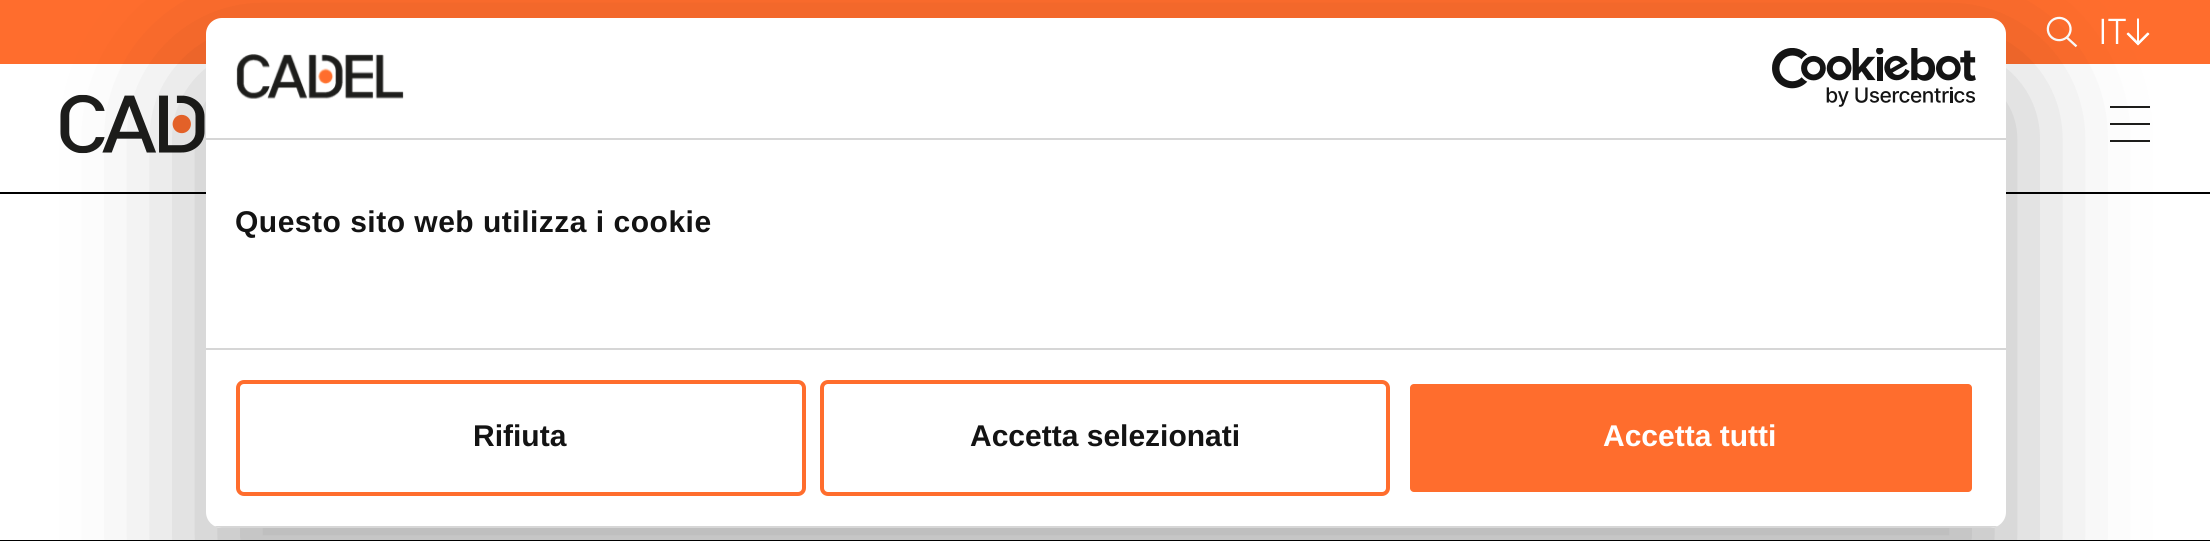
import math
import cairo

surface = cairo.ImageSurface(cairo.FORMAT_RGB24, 2210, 541)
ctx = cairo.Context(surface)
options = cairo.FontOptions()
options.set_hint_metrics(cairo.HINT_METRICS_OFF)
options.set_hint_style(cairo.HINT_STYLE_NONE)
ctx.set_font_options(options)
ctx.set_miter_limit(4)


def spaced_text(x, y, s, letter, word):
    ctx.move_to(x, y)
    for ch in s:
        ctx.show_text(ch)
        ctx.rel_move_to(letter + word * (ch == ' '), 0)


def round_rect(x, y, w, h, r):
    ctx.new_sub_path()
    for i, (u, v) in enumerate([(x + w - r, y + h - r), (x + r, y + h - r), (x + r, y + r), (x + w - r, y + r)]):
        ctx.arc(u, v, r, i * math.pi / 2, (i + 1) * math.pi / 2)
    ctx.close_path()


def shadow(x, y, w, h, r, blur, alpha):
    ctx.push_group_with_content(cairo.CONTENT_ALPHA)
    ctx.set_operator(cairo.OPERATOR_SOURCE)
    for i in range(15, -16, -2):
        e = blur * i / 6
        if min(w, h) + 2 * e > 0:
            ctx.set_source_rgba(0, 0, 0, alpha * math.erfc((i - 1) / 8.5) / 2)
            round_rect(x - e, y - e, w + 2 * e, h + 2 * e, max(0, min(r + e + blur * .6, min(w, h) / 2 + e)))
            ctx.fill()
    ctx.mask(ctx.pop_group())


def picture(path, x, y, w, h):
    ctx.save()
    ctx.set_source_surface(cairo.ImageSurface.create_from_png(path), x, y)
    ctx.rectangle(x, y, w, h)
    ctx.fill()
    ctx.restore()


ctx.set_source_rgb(1, 1, 1)
ctx.paint()
ctx.set_source_rgb(1, 0.427, 0.176)
ctx.rectangle(0, 0, 2210, 64)
ctx.fill()
picture("img1.png", 2046, 16, 32, 32)
ctx.select_font_face("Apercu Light")
ctx.set_font_size(36)
ctx.set_source_rgb(1, 1, 1)
ctx.move_to(2098, 44)
ctx.show_text("IT")
ctx.new_path()
ctx.move_to(2137, 18.5)
ctx.line_to(2137, 41.5)
ctx.line_to(2128, 32.5)
ctx.line_to(2126.5, 34)
ctx.line_to(2138, 45.5)
ctx.line_to(2149.5, 34)
ctx.line_to(2148, 32.5)
ctx.line_to(2139, 41.5)
ctx.line_to(2139, 18.5)
ctx.close_path()
ctx.fill()
ctx.new_path()
ctx.move_to(2137, 19)
ctx.line_to(2137, 41)
ctx.line_to(2128.5, 32.5)
ctx.line_to(2127, 34)
ctx.line_to(2138, 45)
ctx.line_to(2149, 34)
ctx.line_to(2147.5, 32.5)
ctx.line_to(2139, 41)
ctx.line_to(2139, 19)
ctx.close_path()
ctx.fill()
ctx.set_source_rgb(0, 0, 0)
ctx.rectangle(0, 192, 2210, 2)
ctx.fill()
picture("img2.png", 60, 94, 145, 60)
ctx.set_source_rgb(0.114, 0.114, 0.106)
ctx.rectangle(2110, 123, 40, 2)
ctx.fill()
ctx.rectangle(2110, 106, 40, 2)
ctx.fill()
ctx.rectangle(2110, 140, 40, 2)
ctx.fill()
ctx.set_source_rgb(0, 0, 0)
ctx.rectangle(0, 540, 2210, 1)
ctx.fill()
ctx.set_source_rgb(0, 0, 0)
shadow(206, 82, 1800, 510, 16, 68, 0.3)
ctx.set_source_rgb(1, 1, 1)
round_rect(206, 18, 1800, 510, 16)
ctx.fill()
ctx.set_source_rgb(0.839, 0.839, 0.839)
ctx.rectangle(206, 138, 1800, 2)
ctx.fill()
picture("img3.png", 236, 54, 168, 45)
picture("img4.png", 1772, 48, 204, 59)
ctx.rectangle(206, 348, 1800, 2)
ctx.fill()
ctx.select_font_face("Liberation Sans", cairo.FONT_SLANT_NORMAL, cairo.FONT_WEIGHT_BOLD)
ctx.set_font_size(30)
ctx.set_source_rgb(0.078, 0.078, 0.078)
spaced_text(235, 232, "Questo sito web utilizza i cookie", 0.5, 0)
ctx.save()
round_rect(206, 18, 1800, 510, 16)
ctx.clip()
ctx.set_source_rgb(0.839, 0.839, 0.839)
ctx.rectangle(206, 526, 1800, 2)
ctx.fill()
ctx.restore()
round_rect(238, 382, 566, 112, 6)
ctx.set_source_rgb(1, 0.427, 0.176)
ctx.set_line_width(4)
ctx.stroke()
ctx.set_source_rgb(0.078, 0.078, 0.078)
ctx.move_to(473, 446)
ctx.show_text("Rifiuta")
round_rect(822, 382, 566, 112, 6)
ctx.set_source_rgb(1, 0.427, 0.176)
ctx.stroke()
ctx.set_source_rgb(0.078, 0.078, 0.078)
ctx.move_to(970, 446)
ctx.show_text("Accetta selezionati")
ctx.set_source_rgb(1, 0.427, 0.176)
round_rect(1408, 382, 566, 112, 6)
ctx.fill_preserve()
ctx.set_source_rgb(1, 1, 1)
ctx.stroke()
ctx.move_to(1603, 446)
ctx.show_text("Accetta tutti")
surface.write_to_png("page.png")
